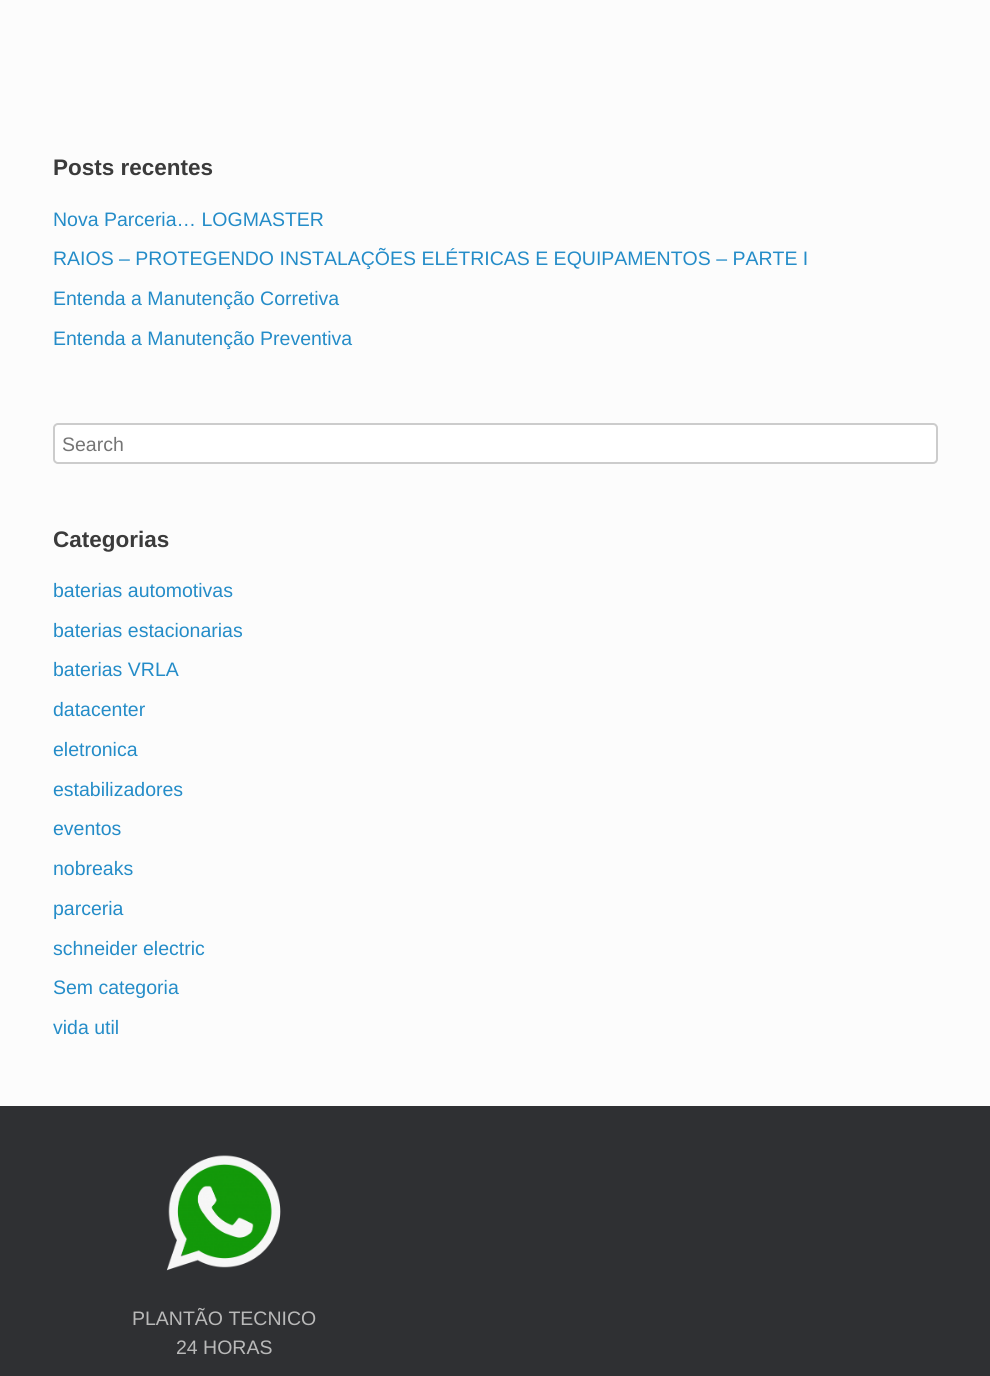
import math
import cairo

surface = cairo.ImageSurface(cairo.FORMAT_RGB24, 990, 1376)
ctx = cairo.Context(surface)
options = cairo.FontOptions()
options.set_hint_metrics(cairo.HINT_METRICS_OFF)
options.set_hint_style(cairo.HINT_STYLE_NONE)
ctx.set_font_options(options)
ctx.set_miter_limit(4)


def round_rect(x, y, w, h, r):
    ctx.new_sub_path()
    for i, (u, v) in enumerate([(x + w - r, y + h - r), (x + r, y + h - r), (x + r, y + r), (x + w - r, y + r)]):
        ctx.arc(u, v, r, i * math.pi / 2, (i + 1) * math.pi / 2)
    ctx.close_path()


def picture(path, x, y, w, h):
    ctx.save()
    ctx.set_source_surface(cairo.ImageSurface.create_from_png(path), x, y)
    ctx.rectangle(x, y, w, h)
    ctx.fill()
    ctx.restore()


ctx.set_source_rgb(0.184, 0.188, 0.2)
ctx.paint()
ctx.set_source_rgb(0.988, 0.988, 0.988)
ctx.rectangle(0, 0, 990, 1106)
ctx.fill()
ctx.select_font_face("Liberation Sans", cairo.FONT_SLANT_NORMAL, cairo.FONT_WEIGHT_BOLD)
ctx.set_font_size(22.5)
ctx.set_source_rgb(0.231, 0.231, 0.231)
ctx.move_to(53, 175)
ctx.show_text("Posts recentes")
ctx.select_font_face("Liberation Sans")
ctx.set_font_size(19.5)
ctx.set_source_rgb(0.141, 0.549, 0.784)
ctx.move_to(53, 226)
ctx.show_text("Nova Parceria… LOGMASTER")
ctx.move_to(53, 265)
ctx.show_text("RAIOS – PROTEGENDO INSTALAÇÕES ELÉTRICAS E EQUIPAMENTOS – PARTE I")
ctx.move_to(53, 305)
ctx.show_text("Entenda a Manutenção Corretiva")
ctx.move_to(53, 345)
ctx.show_text("Entenda a Manutenção Preventiva")
ctx.set_source_rgb(1, 1, 1)
round_rect(54, 424, 883, 39, 4)
ctx.fill_preserve()
ctx.set_source_rgb(0.8, 0.8, 0.8)
ctx.stroke()
ctx.set_source_rgb(0.459, 0.459, 0.459)
ctx.move_to(62, 451)
ctx.show_text("Search")
ctx.select_font_face("Liberation Sans", cairo.FONT_SLANT_NORMAL, cairo.FONT_WEIGHT_BOLD)
ctx.set_font_size(22.5)
ctx.set_source_rgb(0.231, 0.231, 0.231)
ctx.move_to(53, 547)
ctx.show_text("Categorias")
ctx.select_font_face("Liberation Sans")
ctx.set_font_size(19.5)
ctx.set_source_rgb(0.141, 0.549, 0.784)
ctx.move_to(53, 597)
ctx.show_text("baterias automotivas")
ctx.move_to(53, 637)
ctx.show_text("baterias estacionarias")
ctx.move_to(53, 676)
ctx.show_text("baterias VRLA")
ctx.move_to(53, 716)
ctx.show_text("datacenter")
ctx.move_to(53, 756)
ctx.show_text("eletronica")
ctx.move_to(53, 796)
ctx.show_text("estabilizadores")
ctx.move_to(53, 835)
ctx.show_text("eventos")
ctx.move_to(53, 875)
ctx.show_text("nobreaks")
ctx.move_to(53, 915)
ctx.show_text("parceria")
ctx.move_to(53, 955)
ctx.show_text("schneider electric")
ctx.move_to(53, 994)
ctx.show_text("Sem categoria")
ctx.move_to(53, 1034)
ctx.show_text("vida util")
picture("img1.png", 166, 1155, 115, 116)
ctx.set_source_rgb(0.725, 0.725, 0.725)
ctx.move_to(132, 1325)
ctx.show_text("PLANTÃO TECNICO")
ctx.move_to(176, 1354)
ctx.show_text("24 HORAS")
surface.write_to_png("page.png")
